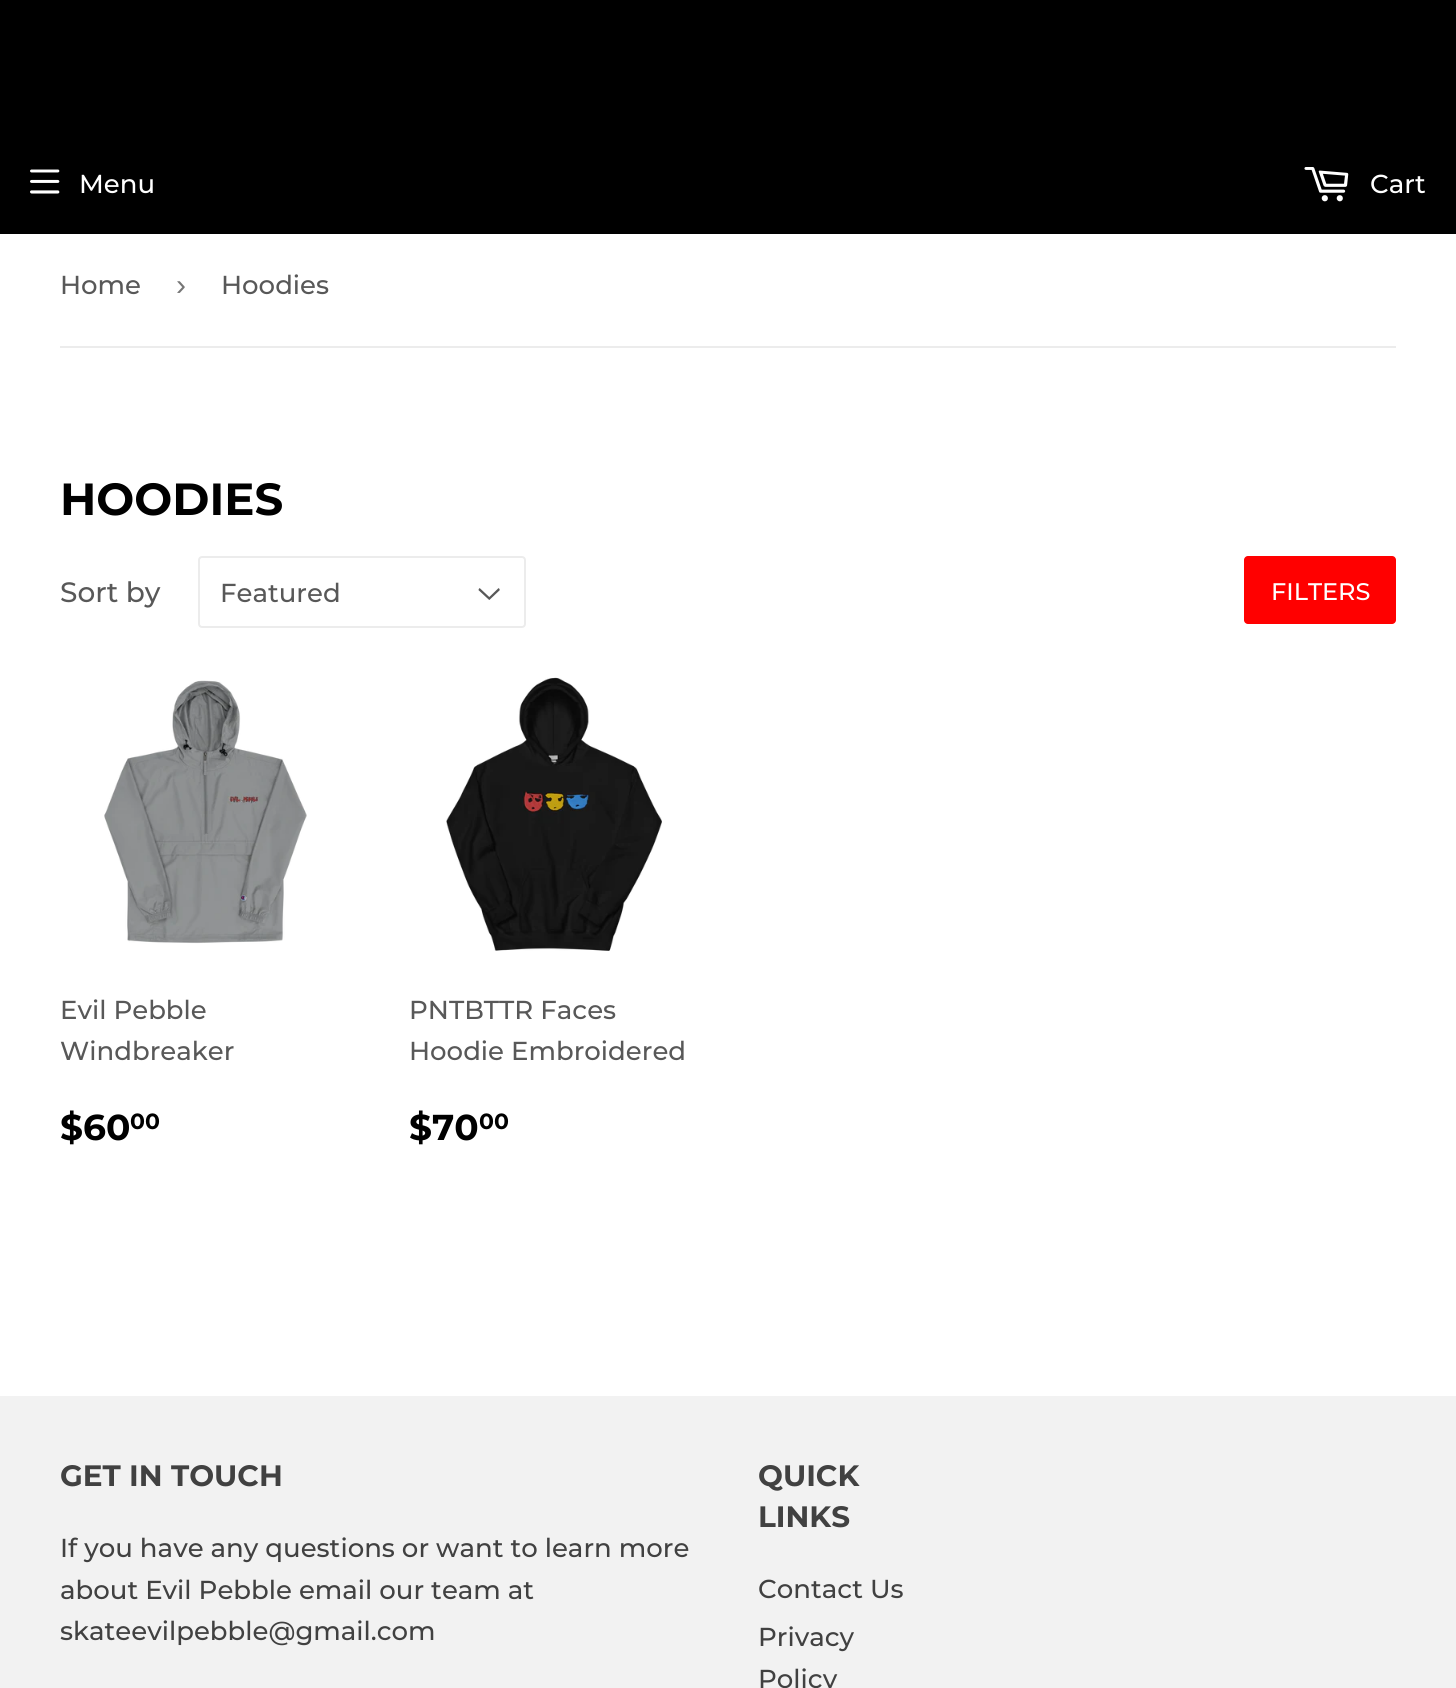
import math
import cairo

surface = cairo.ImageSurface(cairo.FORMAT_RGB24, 1456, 1688)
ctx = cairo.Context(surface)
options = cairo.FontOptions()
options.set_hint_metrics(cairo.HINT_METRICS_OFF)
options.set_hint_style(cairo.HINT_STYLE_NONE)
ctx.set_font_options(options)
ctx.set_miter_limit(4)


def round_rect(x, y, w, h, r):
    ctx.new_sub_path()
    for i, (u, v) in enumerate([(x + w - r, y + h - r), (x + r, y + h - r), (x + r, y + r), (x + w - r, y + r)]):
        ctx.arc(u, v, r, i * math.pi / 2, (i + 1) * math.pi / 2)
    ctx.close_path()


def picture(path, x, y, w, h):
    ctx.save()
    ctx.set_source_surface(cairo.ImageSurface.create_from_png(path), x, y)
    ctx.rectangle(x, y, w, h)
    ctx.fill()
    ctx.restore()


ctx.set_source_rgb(1, 1, 1)
ctx.paint()
ctx.set_source_rgb(0, 0, 0)
ctx.rectangle(0, 0, 1456, 234)
ctx.fill()
picture("img1.png", 30, 169, 30, 25)
ctx.select_font_face("Montserrat Medium")
ctx.set_font_size(26)
ctx.set_source_rgb(1, 1, 1)
ctx.move_to(79, 193)
ctx.show_text("Menu")
picture("img2.png", 1304, 167, 45, 35)
ctx.move_to(1370, 193)
ctx.show_text("Cart")
ctx.set_source_rgb(0.925, 0.925, 0.925)
ctx.rectangle(60, 346, 1336, 2)
ctx.fill()
ctx.set_source_rgb(0.345, 0.345, 0.345)
ctx.move_to(60, 294)
ctx.show_text("Home")
ctx.select_font_face("Liberation Sans")
ctx.set_font_size(30)
ctx.set_source_rgb(0.463, 0.463, 0.463)
ctx.move_to(176, 295)
ctx.show_text("›")
ctx.select_font_face("Montserrat Medium")
ctx.set_font_size(26)
ctx.set_source_rgb(0.345, 0.345, 0.345)
ctx.move_to(221, 294)
ctx.show_text("Hoodies")
ctx.select_font_face("Montserrat", cairo.FONT_SLANT_NORMAL, cairo.FONT_WEIGHT_BOLD)
ctx.set_font_size(45)
ctx.set_source_rgb(0, 0, 0)
ctx.move_to(60, 515)
ctx.show_text("HOODIES")
ctx.select_font_face("Montserrat Medium")
ctx.set_font_size(28)
ctx.set_source_rgb(0.345, 0.345, 0.345)
ctx.move_to(60, 602)
ctx.show_text("Sort by")
picture("img3.png", 478, 588, 22, 12)
round_rect(199, 557, 326, 70, 3)
ctx.set_source_rgb(0.925, 0.925, 0.925)
ctx.stroke()
ctx.set_font_size(26)
ctx.set_source_rgb(0.345, 0.345, 0.345)
ctx.move_to(220, 602)
ctx.show_text("Featured")
ctx.set_source_rgb(1, 0, 0)
round_rect(1244, 556, 152, 68, 4)
ctx.fill()
ctx.set_font_size(24)
ctx.set_source_rgb(1, 1, 1)
ctx.move_to(1271, 600)
ctx.show_text("FILTERS")
picture("img4.png", 104, 680, 203, 264)
ctx.set_font_size(26)
ctx.set_source_rgb(0.345, 0.345, 0.345)
ctx.move_to(60, 1019)
ctx.show_text("Evil Pebble")
ctx.move_to(60, 1060)
ctx.show_text("Windbreaker")
ctx.select_font_face("Montserrat", cairo.FONT_SLANT_NORMAL, cairo.FONT_WEIGHT_BOLD)
ctx.set_font_size(36)
ctx.set_source_rgb(0, 0, 0)
ctx.move_to(60, 1140)
ctx.show_text("$60")
ctx.set_font_size(22)
ctx.move_to(130, 1129)
ctx.show_text("00")
picture("img5.png", 446, 677, 216, 274)
ctx.select_font_face("Montserrat Medium")
ctx.set_font_size(26)
ctx.set_source_rgb(0.345, 0.345, 0.345)
ctx.move_to(409, 1019)
ctx.show_text("PNTBTTR Faces")
ctx.move_to(409, 1060)
ctx.show_text("Hoodie Embroidered")
ctx.select_font_face("Montserrat", cairo.FONT_SLANT_NORMAL, cairo.FONT_WEIGHT_BOLD)
ctx.set_font_size(36)
ctx.set_source_rgb(0, 0, 0)
ctx.move_to(409, 1140)
ctx.show_text("$70")
ctx.set_font_size(22)
ctx.move_to(479, 1129)
ctx.show_text("00")
ctx.set_source_rgb(0.949, 0.949, 0.949)
ctx.rectangle(0, 1396, 1456, 292)
ctx.fill()
ctx.set_font_size(29.5)
ctx.set_source_rgb(0.255, 0.255, 0.255)
ctx.move_to(60, 1486)
ctx.show_text("GET IN TOUCH")
ctx.select_font_face("Montserrat Medium")
ctx.set_font_size(26)
ctx.move_to(60, 1557)
ctx.show_text("If you have any questions or want to learn more")
ctx.move_to(60, 1599)
ctx.show_text("about Evil Pebble email our team at")
ctx.move_to(60, 1640)
ctx.show_text("skateevilpebble@gmail.com")
ctx.select_font_face("Montserrat", cairo.FONT_SLANT_NORMAL, cairo.FONT_WEIGHT_BOLD)
ctx.set_font_size(29.5)
ctx.move_to(758, 1486)
ctx.show_text("QUICK")
ctx.move_to(758, 1527)
ctx.show_text("LINKS")
ctx.select_font_face("Montserrat Medium")
ctx.set_font_size(26)
ctx.move_to(758, 1598)
ctx.show_text("Contact Us")
ctx.move_to(758, 1646)
ctx.show_text("Privacy")
ctx.move_to(758, 1688)
ctx.show_text("Policy")
surface.write_to_png("page.png")
